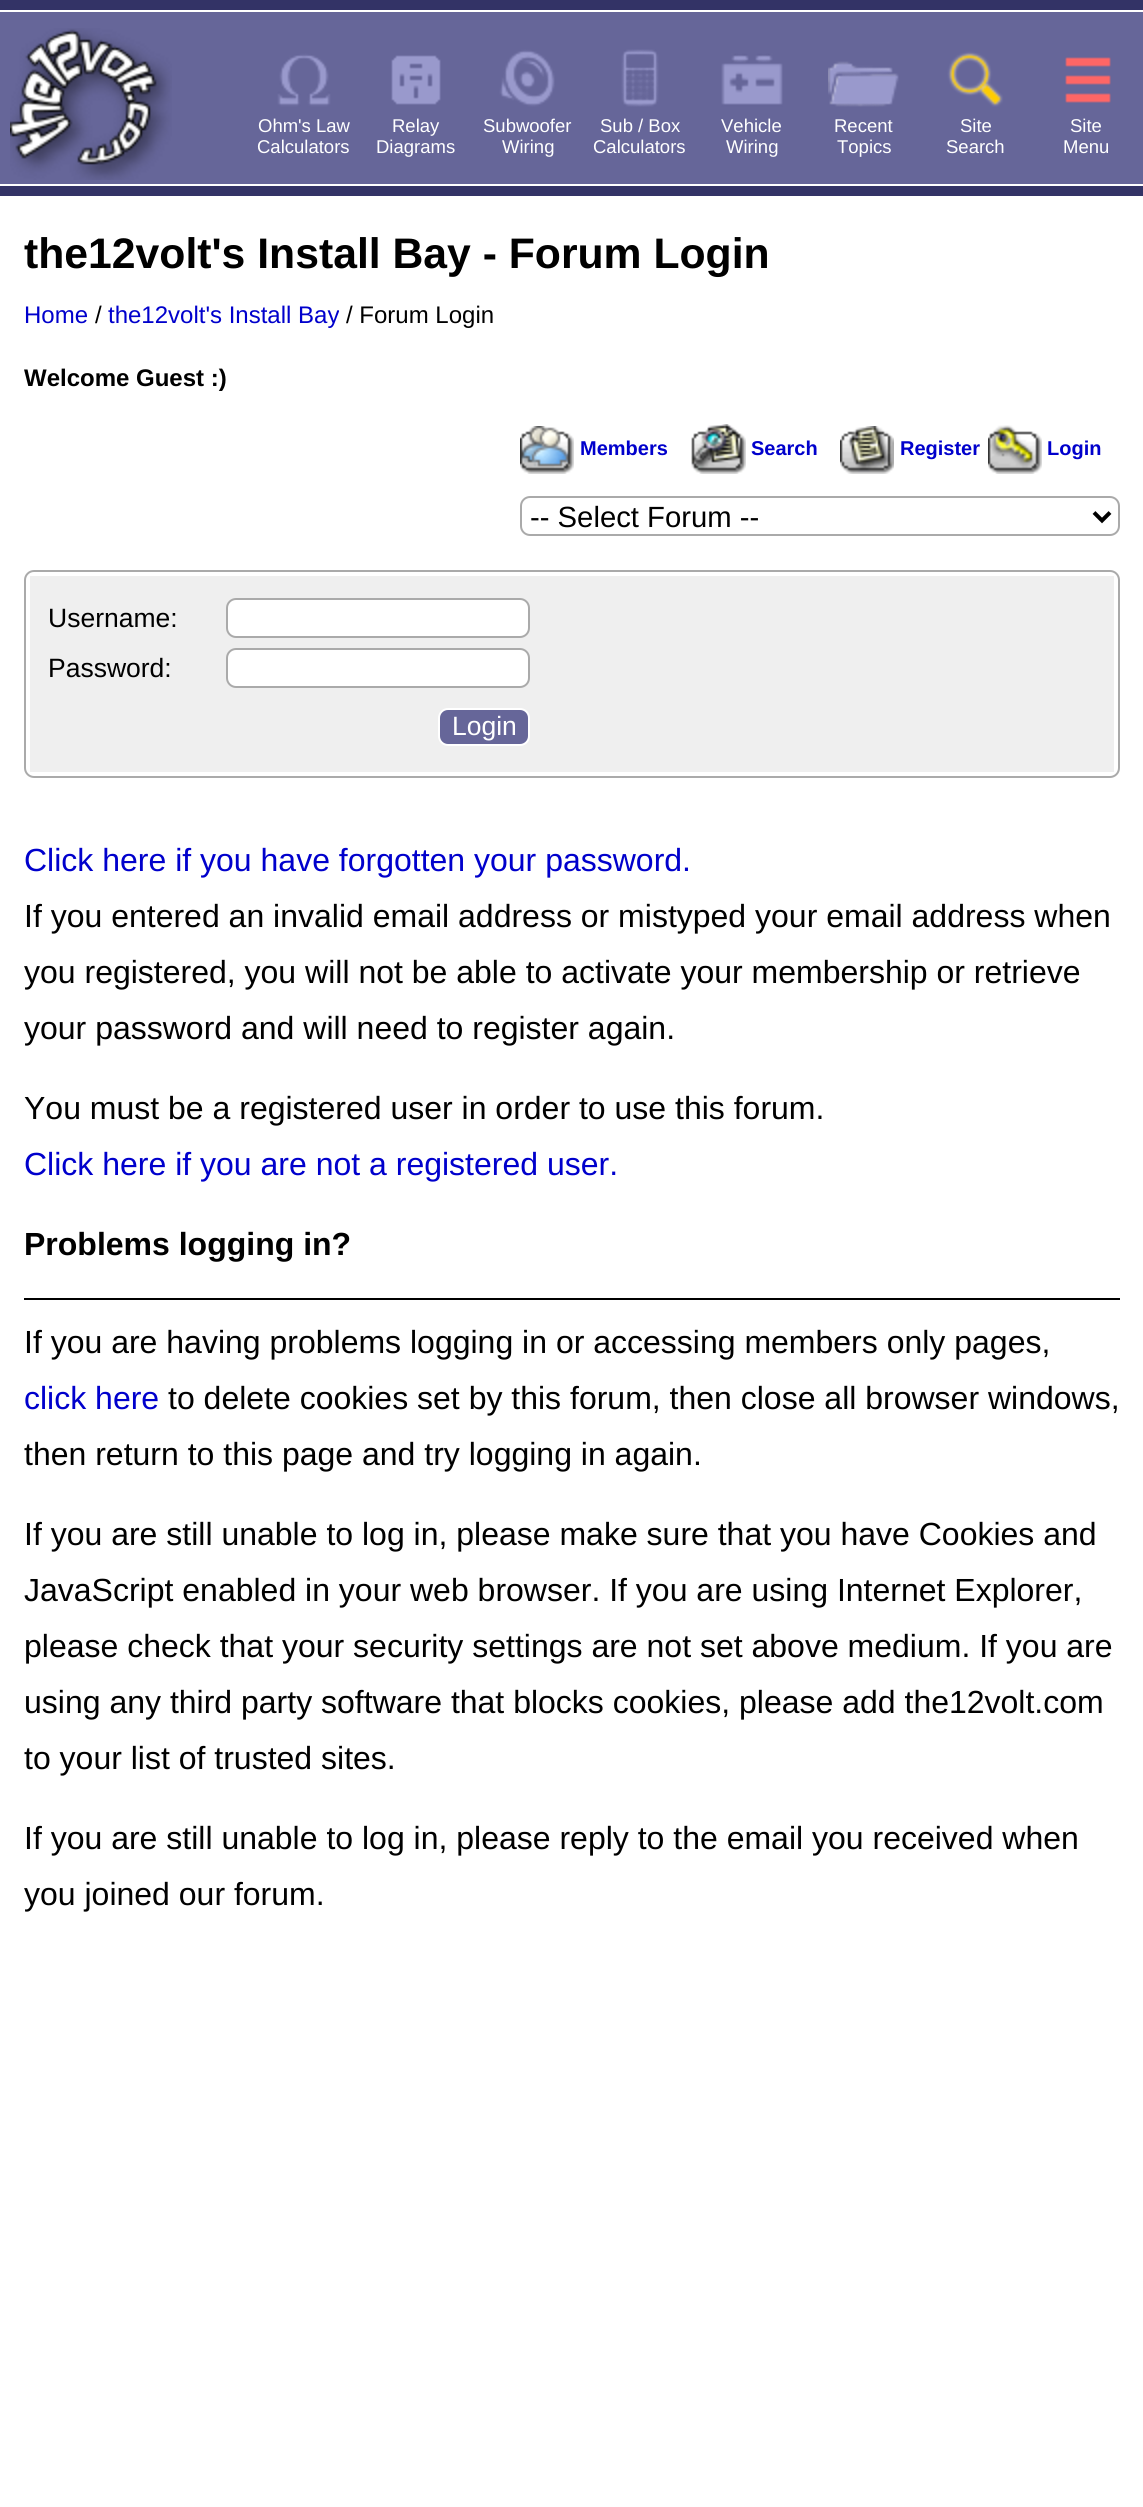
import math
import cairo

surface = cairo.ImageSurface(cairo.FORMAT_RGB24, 1143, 2507)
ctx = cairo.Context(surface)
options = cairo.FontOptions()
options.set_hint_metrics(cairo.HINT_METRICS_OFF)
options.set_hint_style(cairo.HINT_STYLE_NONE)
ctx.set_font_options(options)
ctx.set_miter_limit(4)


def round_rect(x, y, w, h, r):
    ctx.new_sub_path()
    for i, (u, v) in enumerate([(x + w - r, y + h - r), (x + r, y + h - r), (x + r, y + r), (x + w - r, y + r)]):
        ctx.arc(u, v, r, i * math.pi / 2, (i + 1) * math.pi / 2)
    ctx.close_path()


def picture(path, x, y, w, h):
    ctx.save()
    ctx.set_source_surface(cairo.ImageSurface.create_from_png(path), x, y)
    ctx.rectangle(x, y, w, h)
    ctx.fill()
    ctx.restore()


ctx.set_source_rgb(1, 1, 1)
ctx.paint()
ctx.set_source_rgb(0.2, 0.2, 0.4)
ctx.rectangle(0, 0, 1143, 10)
ctx.fill()
ctx.set_source_rgb(0.4, 0.4, 0.6)
ctx.rectangle(0, 12, 1143, 172)
ctx.fill()
picture("img1.png", 10, 28, 162, 152)
ctx.set_source_rgb(0.6, 0.6, 0.8)
ctx.rectangle(277, 53, 54, 54)
ctx.fill()
picture("img2.png", 268, 44, 72, 72)
ctx.select_font_face("Liberation Sans")
ctx.set_font_size(18.5)
ctx.set_source_rgb(1, 1, 1)
ctx.move_to(258, 132)
ctx.show_text("Ohm's Law")
ctx.move_to(257, 153)
ctx.show_text("Calculators")
ctx.set_source_rgb(0.6, 0.6, 0.8)
ctx.rectangle(391, 55, 50, 50)
ctx.fill()
picture("img3.png", 380, 44, 72, 72)
ctx.set_source_rgb(1, 1, 1)
ctx.move_to(392, 132)
ctx.show_text("Relay")
ctx.move_to(376, 153)
ctx.show_text("Diagrams")
ctx.set_source_rgb(0.6, 0.6, 0.8)
ctx.rectangle(499, 49, 56, 58)
ctx.fill()
picture("img4.png", 492, 44, 72, 70)
ctx.set_source_rgb(1, 1, 1)
ctx.move_to(483, 132)
ctx.show_text("Subwoofer")
ctx.move_to(502, 153)
ctx.show_text("Wiring")
ctx.set_source_rgb(0.6, 0.6, 0.8)
ctx.rectangle(621, 49, 38, 58)
ctx.fill()
picture("img5.png", 604, 44, 72, 70)
ctx.set_source_rgb(1, 1, 1)
ctx.move_to(600, 132)
ctx.show_text("Sub / Box")
ctx.move_to(593, 153)
ctx.show_text("Calculators")
ctx.set_source_rgb(0.6, 0.6, 0.8)
ctx.rectangle(721, 53, 62, 53)
ctx.fill()
picture("img6.png", 716, 44, 72, 70)
ctx.set_source_rgb(1, 1, 1)
ctx.move_to(721, 132)
ctx.show_text("Vehicle")
ctx.move_to(726, 153)
ctx.show_text("Wiring")
ctx.set_source_rgb(0.6, 0.6, 0.8)
ctx.rectangle(828, 61, 71, 46)
ctx.fill()
picture("img7.png", 828, 48, 72, 68)
ctx.set_source_rgb(1, 1, 1)
ctx.move_to(834, 132)
ctx.show_text("Recent")
ctx.move_to(837, 153)
ctx.show_text("Topics")
ctx.set_source_rgb(1, 0.8, 0)
ctx.rectangle(949, 53, 54, 53)
ctx.fill()
picture("img8.png", 940, 44, 72, 72)
ctx.set_source_rgb(1, 1, 1)
ctx.move_to(960, 132)
ctx.show_text("Site")
ctx.move_to(946, 153)
ctx.show_text("Search")
ctx.set_source_rgb(1, 0.4, 0.4)
ctx.rectangle(1065, 57, 46, 46)
ctx.fill()
picture("img9.png", 1052, 44, 72, 72)
ctx.set_source_rgb(1, 1, 1)
ctx.move_to(1070, 132)
ctx.show_text("Site")
ctx.move_to(1063, 153)
ctx.show_text("Menu")
ctx.set_source_rgb(0.2, 0.2, 0.4)
ctx.rectangle(0, 186, 1143, 10)
ctx.fill()
ctx.select_font_face("Liberation Sans", cairo.FONT_SLANT_NORMAL, cairo.FONT_WEIGHT_BOLD)
ctx.set_font_size(42.7)
ctx.set_source_rgb(0, 0, 0)
ctx.move_to(24, 268)
ctx.show_text("the12volt's Install Bay - Forum Login")
ctx.select_font_face("Liberation Sans")
ctx.set_font_size(24)
ctx.set_source_rgb(0, 0, 0.8)
ctx.move_to(24, 323)
ctx.show_text("Home")
ctx.set_source_rgb(0, 0, 0)
ctx.move_to(95, 323)
ctx.show_text("/")
ctx.set_source_rgb(0, 0, 0.8)
ctx.move_to(108, 323)
ctx.show_text("the12volt's Install Bay")
ctx.set_source_rgb(0, 0, 0)
ctx.move_to(346, 323)
ctx.show_text("/ Forum Login")
ctx.select_font_face("Liberation Sans", cairo.FONT_SLANT_NORMAL, cairo.FONT_WEIGHT_BOLD)
ctx.move_to(24, 386)
ctx.show_text("Welcome Guest :)")
picture("img10.png", 520, 426, 54, 48)
ctx.set_font_size(20)
ctx.set_source_rgb(0, 0, 0.8)
ctx.move_to(580, 455)
ctx.show_text("Members")
picture("img11.png", 691, 424, 55, 50)
ctx.move_to(751, 455)
ctx.show_text("Search")
picture("img12.png", 840, 426, 54, 48)
ctx.move_to(900, 455)
ctx.show_text("Register")
picture("img13.png", 988, 425, 54, 49)
ctx.move_to(1047, 455)
ctx.show_text("Login")
round_rect(521, 497, 598, 38, 9)
ctx.set_source_rgb(0.667, 0.667, 0.667)
ctx.stroke()
ctx.new_path()
ctx.move_to(1094, 512.5)
ctx.line_to(1102, 520.5)
ctx.line_to(1110, 512.5)
ctx.set_source_rgb(0, 0, 0)
ctx.set_line_width(4)
ctx.stroke()
ctx.select_font_face("Liberation Sans")
ctx.set_font_size(29.25)
ctx.move_to(530, 527)
ctx.show_text("-- Select Forum --")
round_rect(25, 571, 1094, 206, 9)
ctx.set_source_rgb(0.667, 0.667, 0.667)
ctx.set_line_width(2)
ctx.stroke()
ctx.set_source_rgb(0.937, 0.937, 0.937)
ctx.rectangle(30, 576, 1084, 196)
ctx.fill()
ctx.set_font_size(26.5)
ctx.set_source_rgb(0, 0, 0)
ctx.move_to(48, 627)
ctx.show_text("Username:")
ctx.set_source_rgb(1, 1, 1)
round_rect(227, 599, 302, 38, 9)
ctx.fill_preserve()
ctx.set_source_rgb(0.667, 0.667, 0.667)
ctx.stroke()
ctx.set_source_rgb(0, 0, 0)
ctx.move_to(48, 677)
ctx.show_text("Password:")
ctx.set_source_rgb(1, 1, 1)
round_rect(227, 649, 302, 38, 9)
ctx.fill_preserve()
ctx.set_source_rgb(0.667, 0.667, 0.667)
ctx.stroke()
ctx.set_source_rgb(0.4, 0.4, 0.6)
round_rect(439, 709, 90, 36, 9)
ctx.fill_preserve()
ctx.set_source_rgb(1, 1, 1)
ctx.stroke()
ctx.move_to(452, 735)
ctx.show_text("Login")
ctx.set_font_size(32)
ctx.set_source_rgb(0, 0, 0.8)
ctx.move_to(24, 871)
ctx.show_text("Click here if you have forgotten your password.")
ctx.set_source_rgb(0, 0, 0)
ctx.move_to(24, 927)
ctx.show_text("If you entered an invalid email address or mistyped your email address when")
ctx.move_to(24, 983)
ctx.show_text("you registered, you will not be able to activate your membership or retrieve")
ctx.move_to(24, 1039)
ctx.show_text("your password and will need to register again.")
ctx.move_to(24, 1119)
ctx.show_text("You must be a registered user in order to use this forum.")
ctx.set_source_rgb(0, 0, 0.8)
ctx.move_to(24, 1175)
ctx.show_text("Click here if you are not a registered user.")
ctx.select_font_face("Liberation Sans", cairo.FONT_SLANT_NORMAL, cairo.FONT_WEIGHT_BOLD)
ctx.set_source_rgb(0, 0, 0)
ctx.move_to(24, 1255)
ctx.show_text("Problems logging in?")
ctx.rectangle(24, 1298, 1096, 2)
ctx.fill()
ctx.select_font_face("Liberation Sans")
ctx.move_to(24, 1353)
ctx.show_text("If you are having problems logging in or accessing members only pages,")
ctx.set_source_rgb(0, 0, 0.8)
ctx.move_to(24, 1409)
ctx.show_text("click here")
ctx.set_source_rgb(0, 0, 0)
ctx.move_to(168, 1409)
ctx.show_text("to delete cookies set by this forum, then close all browser windows,")
ctx.move_to(24, 1465)
ctx.show_text("then return to this page and try logging in again.")
ctx.move_to(24, 1545)
ctx.show_text("If you are still unable to log in, please make sure that you have Cookies and")
ctx.move_to(24, 1601)
ctx.show_text("JavaScript enabled in your web browser. If you are using Internet Explorer,")
ctx.move_to(24, 1657)
ctx.show_text("please check that your security settings are not set above medium. If you are")
ctx.move_to(24, 1713)
ctx.show_text("using any third party software that blocks cookies, please add the12volt.com")
ctx.move_to(24, 1769)
ctx.show_text("to your list of trusted sites.")
ctx.move_to(24, 1849)
ctx.show_text("If you are still unable to log in, please reply to the email you received when")
ctx.move_to(24, 1905)
ctx.show_text("you joined our forum.")
surface.write_to_png("page.png")
